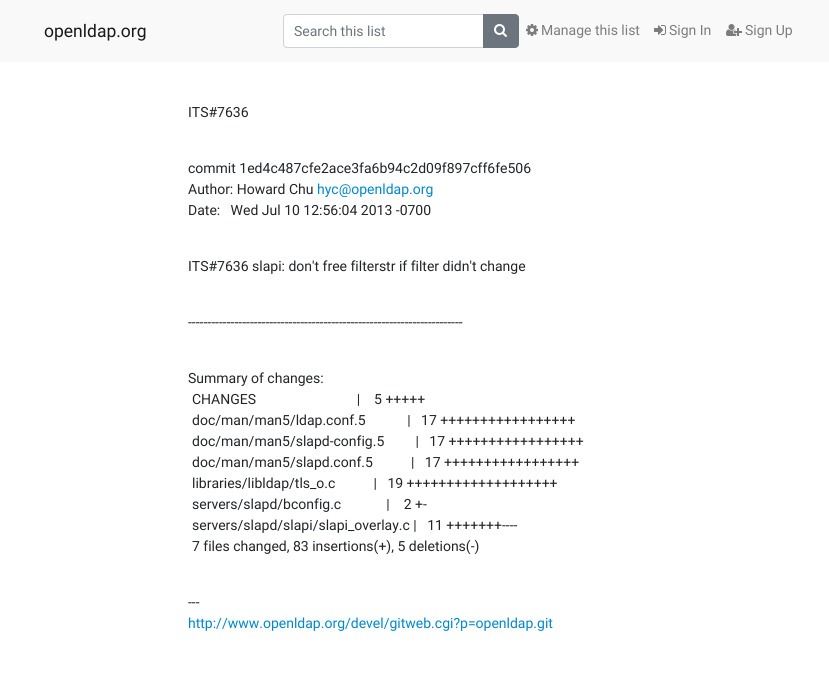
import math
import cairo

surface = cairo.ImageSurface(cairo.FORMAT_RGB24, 829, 684)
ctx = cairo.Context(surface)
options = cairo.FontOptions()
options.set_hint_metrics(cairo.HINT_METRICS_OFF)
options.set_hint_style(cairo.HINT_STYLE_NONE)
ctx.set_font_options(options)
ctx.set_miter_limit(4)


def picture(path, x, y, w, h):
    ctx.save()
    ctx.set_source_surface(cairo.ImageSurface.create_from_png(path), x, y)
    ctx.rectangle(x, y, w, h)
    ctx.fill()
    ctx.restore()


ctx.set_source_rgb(1, 1, 1)
ctx.paint()
ctx.set_source_rgb(0.973, 0.976, 0.98)
ctx.rectangle(0, 0, 829, 62)
ctx.fill()
ctx.select_font_face("Roboto")
ctx.set_font_size(17.5)
ctx.set_source_rgb(0.098, 0.098, 0.098)
ctx.move_to(44, 37)
ctx.show_text("openldap.org")
ctx.set_source_rgb(1, 1, 1)
ctx.new_path()
ctx.move_to(286.5, 15)
ctx.line_to(483, 15)
ctx.line_to(483, 47)
ctx.line_to(286.5, 47)
ctx.curve_to(285, 47, 284, 46, 284, 44.5)
ctx.line_to(284, 17.5)
ctx.curve_to(284, 16, 285, 15, 286.5, 15)
ctx.close_path()
ctx.fill()
ctx.new_path()
ctx.move_to(287, 14.5)
ctx.line_to(483.5, 14.5)
ctx.line_to(483.5, 47.5)
ctx.line_to(287, 47.5)
ctx.curve_to(285, 47.5, 283.5, 46, 283.5, 44)
ctx.line_to(283.5, 18)
ctx.curve_to(283.5, 16, 285, 14.5, 287, 14.5)
ctx.close_path()
ctx.set_source_rgb(0.808, 0.831, 0.855)
ctx.set_line_width(1)
ctx.stroke()
ctx.set_font_size(14)
ctx.set_source_rgb(0.424, 0.459, 0.49)
ctx.move_to(294, 36)
ctx.show_text("Search this list")
ctx.new_path()
ctx.move_to(483.5, 14.5)
ctx.line_to(515, 14.5)
ctx.curve_to(517, 14.5, 518.5, 16, 518.5, 18)
ctx.line_to(518.5, 44)
ctx.curve_to(518.5, 46, 517, 47.5, 515, 47.5)
ctx.line_to(483.5, 47.5)
ctx.close_path()
ctx.fill_preserve()
ctx.stroke()
picture("img1.png", 494, 24, 13, 13)
picture("img2.png", 526, 24, 12, 12)
ctx.set_source_rgb(0.486, 0.49, 0.49)
ctx.move_to(541, 35)
ctx.show_text("Manage this list")
picture("img3.png", 654, 25, 12, 10)
ctx.move_to(669, 35)
ctx.show_text("Sign In")
picture("img4.png", 726, 24, 16, 12)
ctx.move_to(745, 35)
ctx.show_text("Sign Up")
ctx.set_source_rgb(0.129, 0.145, 0.161)
ctx.move_to(188, 117)
ctx.show_text("ITS#7636")
ctx.move_to(188, 173)
ctx.show_text("commit 1ed4c487cfe2ace3fa6b94c2d09f897cff6fe506")
ctx.move_to(188, 194)
ctx.show_text("Author: Howard Chu")
ctx.set_source_rgb(0, 0.533, 0.8)
ctx.move_to(317, 194)
ctx.show_text("hyc@openldap.org")
ctx.set_source_rgb(0.129, 0.145, 0.161)
ctx.move_to(188, 215)
ctx.show_text("Date:   Wed Jul 10 12:56:04 2013 -0700")
ctx.move_to(188, 271)
ctx.show_text("ITS#7636 slapi: don't free filterstr if filter didn't change")
ctx.move_to(188, 327)
ctx.show_text("-----------------------------------------------------------------------")
ctx.move_to(188, 383)
ctx.show_text("Summary of changes:")
ctx.move_to(192, 404)
ctx.show_text("CHANGES                             |    5 +++++")
ctx.move_to(192, 425)
ctx.show_text("doc/man/man5/ldap.conf.5            |   17 +++++++++++++++++")
ctx.move_to(192, 446)
ctx.show_text("doc/man/man5/slapd-config.5         |   17 +++++++++++++++++")
ctx.move_to(192, 467)
ctx.show_text("doc/man/man5/slapd.conf.5           |   17 +++++++++++++++++")
ctx.move_to(192, 488)
ctx.show_text("libraries/libldap/tls_o.c           |   19 +++++++++++++++++++")
ctx.move_to(192, 509)
ctx.show_text("servers/slapd/bconfig.c             |    2 +-")
ctx.move_to(192, 530)
ctx.show_text("servers/slapd/slapi/slapi_overlay.c |   11 +++++++----")
ctx.move_to(192, 551)
ctx.show_text("7 files changed, 83 insertions(+), 5 deletions(-)")
ctx.move_to(188, 607)
ctx.show_text("---")
ctx.set_source_rgb(0, 0.533, 0.8)
ctx.move_to(188, 628)
ctx.show_text("http://www.openldap.org/devel/gitweb.cgi?p=openldap.git")
surface.write_to_png("page.png")
